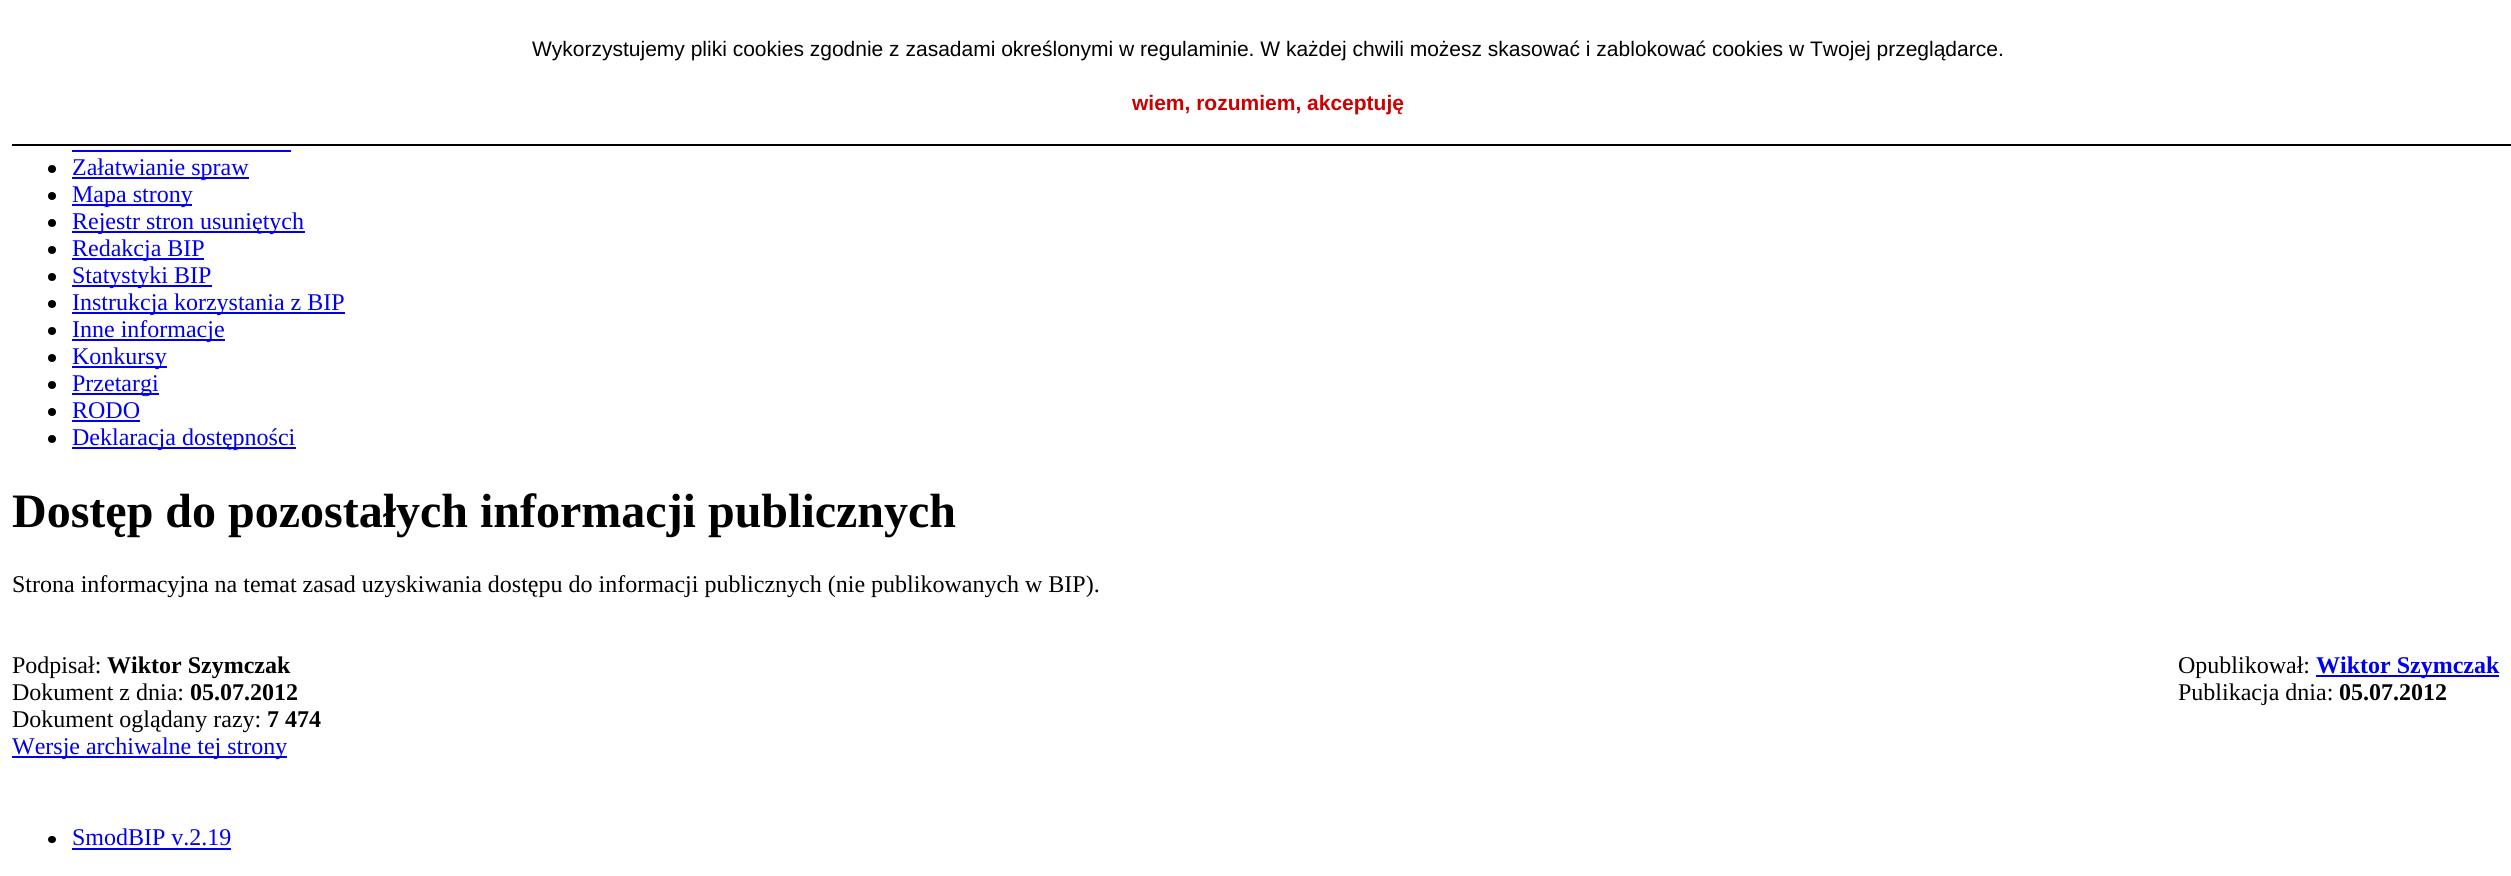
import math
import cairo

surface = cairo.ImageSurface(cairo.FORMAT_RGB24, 2511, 876)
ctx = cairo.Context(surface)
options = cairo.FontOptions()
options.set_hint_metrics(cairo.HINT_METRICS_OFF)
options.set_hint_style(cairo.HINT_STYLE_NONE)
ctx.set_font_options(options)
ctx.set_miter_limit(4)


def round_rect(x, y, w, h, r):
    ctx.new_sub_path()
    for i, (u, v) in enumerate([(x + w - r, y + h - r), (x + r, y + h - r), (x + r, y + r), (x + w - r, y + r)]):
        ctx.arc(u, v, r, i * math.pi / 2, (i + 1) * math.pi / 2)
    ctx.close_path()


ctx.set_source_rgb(1, 1, 1)
ctx.paint()
ctx.set_source_rgb(0, 0, 0)
ctx.rectangle(12, 144, 2499, 2)
ctx.fill()
ctx.select_font_face("Liberation Sans")
ctx.set_font_size(21)
ctx.move_to(532, 56)
ctx.show_text("Wykorzystujemy pliki cookies zgodnie z zasadami określonymi w regulaminie. W każdej chwili możesz skasować i zablokować cookies w Twojej przeglądarce.")
ctx.select_font_face("Liberation Sans", cairo.FONT_SLANT_NORMAL, cairo.FONT_WEIGHT_BOLD)
ctx.set_source_rgb(0.8, 0, 0)
ctx.move_to(1132, 110)
ctx.show_text("wiem, rozumiem, akceptuję")
ctx.set_source_rgb(0, 0, 0.933)
ctx.rectangle(72, 150, 219, 2)
ctx.fill()
ctx.set_source_rgb(0, 0, 0)
ctx.arc(52, 169, 4, 0, 2 * math.pi)
ctx.fill()
ctx.set_source_rgb(0, 0, 0.933)
ctx.rectangle(72, 177, 177, 2)
ctx.fill()
ctx.select_font_face("Liberation Serif")
ctx.set_font_size(24)
ctx.move_to(72, 175)
ctx.show_text("Załatwianie spraw")
ctx.set_source_rgb(0, 0, 0)
ctx.new_path()
ctx.arc(52, 196, 4, 0, 2 * math.pi)
ctx.fill()
ctx.set_source_rgb(0, 0, 0.933)
ctx.rectangle(72, 204, 120, 2)
ctx.fill()
ctx.move_to(72, 202)
ctx.show_text("Mapa strony")
ctx.set_source_rgb(0, 0, 0)
ctx.new_path()
ctx.arc(52, 223, 4, 0, 2 * math.pi)
ctx.fill()
ctx.set_source_rgb(0, 0, 0.933)
ctx.rectangle(72, 231, 233, 2)
ctx.fill()
ctx.move_to(72, 229)
ctx.show_text("Rejestr stron usuniętych")
ctx.set_source_rgb(0, 0, 0)
ctx.new_path()
ctx.arc(52, 250, 4, 0, 2 * math.pi)
ctx.fill()
ctx.set_source_rgb(0, 0, 0.933)
ctx.rectangle(72, 258, 132, 2)
ctx.fill()
ctx.move_to(72, 256)
ctx.show_text("Redakcja BIP")
ctx.set_source_rgb(0, 0, 0)
ctx.new_path()
ctx.arc(52, 277, 4, 0, 2 * math.pi)
ctx.fill()
ctx.set_source_rgb(0, 0, 0.933)
ctx.rectangle(72, 285, 140, 2)
ctx.fill()
ctx.move_to(72, 283)
ctx.show_text("Statystyki BIP")
ctx.set_source_rgb(0, 0, 0)
ctx.new_path()
ctx.arc(52, 304, 4, 0, 2 * math.pi)
ctx.fill()
ctx.set_source_rgb(0, 0, 0.933)
ctx.rectangle(72, 312, 273, 2)
ctx.fill()
ctx.move_to(72, 310)
ctx.show_text("Instrukcja korzystania z BIP")
ctx.set_source_rgb(0, 0, 0)
ctx.new_path()
ctx.arc(52, 331, 4, 0, 2 * math.pi)
ctx.fill()
ctx.set_source_rgb(0, 0, 0.933)
ctx.rectangle(72, 339, 153, 2)
ctx.fill()
ctx.move_to(72, 337)
ctx.show_text("Inne informacje")
ctx.set_source_rgb(0, 0, 0)
ctx.new_path()
ctx.arc(52, 358, 4, 0, 2 * math.pi)
ctx.fill()
ctx.set_source_rgb(0, 0, 0.933)
ctx.rectangle(72, 366, 95, 2)
ctx.fill()
ctx.move_to(72, 364)
ctx.show_text("Konkursy")
ctx.set_source_rgb(0, 0, 0)
ctx.new_path()
ctx.arc(52, 385, 4, 0, 2 * math.pi)
ctx.fill()
ctx.set_source_rgb(0, 0, 0.933)
ctx.rectangle(72, 393, 87, 2)
ctx.fill()
ctx.move_to(72, 391)
ctx.show_text("Przetargi")
ctx.set_source_rgb(0, 0, 0)
ctx.new_path()
ctx.arc(52, 412, 4, 0, 2 * math.pi)
ctx.fill()
ctx.set_source_rgb(0, 0, 0.933)
ctx.move_to(72, 418)
ctx.show_text("RODO")
ctx.rectangle(72, 420, 68, 2)
ctx.fill()
ctx.set_source_rgb(0, 0, 0)
ctx.arc(52, 439, 4, 0, 2 * math.pi)
ctx.fill()
ctx.set_source_rgb(0, 0, 0.933)
ctx.rectangle(72, 447, 224, 2)
ctx.fill()
ctx.move_to(72, 445)
ctx.show_text("Deklaracja dostępności")
ctx.select_font_face("Liberation Serif", cairo.FONT_SLANT_NORMAL, cairo.FONT_WEIGHT_BOLD)
ctx.set_font_size(48)
ctx.set_source_rgb(0, 0, 0)
ctx.move_to(12, 527)
ctx.show_text("Dostęp do pozostałych informacji publicznych")
ctx.select_font_face("Liberation Serif")
ctx.set_font_size(24)
ctx.move_to(12, 592)
ctx.show_text("Strona informacyjna na temat zasad uzyskiwania dostępu do informacji publicznych (nie publikowanych w BIP).")
ctx.move_to(12, 673)
ctx.show_text("Podpisał:")
ctx.select_font_face("Liberation Serif", cairo.FONT_SLANT_NORMAL, cairo.FONT_WEIGHT_BOLD)
ctx.move_to(107, 673)
ctx.show_text("Wiktor Szymczak")
ctx.select_font_face("Liberation Serif")
ctx.move_to(2178, 673)
ctx.show_text("Opublikował:")
ctx.set_source_rgb(0, 0, 0.933)
ctx.rectangle(2316, 675, 183, 2)
ctx.fill()
ctx.select_font_face("Liberation Serif", cairo.FONT_SLANT_NORMAL, cairo.FONT_WEIGHT_BOLD)
ctx.move_to(2316, 673)
ctx.show_text("Wiktor Szymczak")
ctx.select_font_face("Liberation Serif")
ctx.set_source_rgb(0, 0, 0)
ctx.move_to(2178, 700)
ctx.show_text("Publikacja dnia:")
ctx.select_font_face("Liberation Serif", cairo.FONT_SLANT_NORMAL, cairo.FONT_WEIGHT_BOLD)
ctx.move_to(2339, 700)
ctx.show_text("05.07.2012")
ctx.select_font_face("Liberation Serif")
ctx.move_to(12, 700)
ctx.show_text("Dokument z dnia:")
ctx.select_font_face("Liberation Serif", cairo.FONT_SLANT_NORMAL, cairo.FONT_WEIGHT_BOLD)
ctx.move_to(190, 700)
ctx.show_text("05.07.2012")
ctx.select_font_face("Liberation Serif")
ctx.move_to(12, 727)
ctx.show_text("Dokument oglądany razy:")
ctx.select_font_face("Liberation Serif", cairo.FONT_SLANT_NORMAL, cairo.FONT_WEIGHT_BOLD)
ctx.move_to(267, 727)
ctx.show_text("7 474")
ctx.set_source_rgb(0, 0, 0.933)
ctx.rectangle(12, 756, 275, 2)
ctx.fill()
ctx.select_font_face("Liberation Serif")
ctx.move_to(12, 754)
ctx.show_text("Wersje archiwalne tej strony")
ctx.set_source_rgb(0, 0, 0)
round_rect(48, 836, 8, 7, 3.5)
ctx.fill()
ctx.set_source_rgb(0, 0, 0.933)
ctx.move_to(72, 845)
ctx.show_text("SmodBIP v.2.19")
ctx.rectangle(72, 848, 159, 2)
ctx.fill()
surface.write_to_png("page.png")
